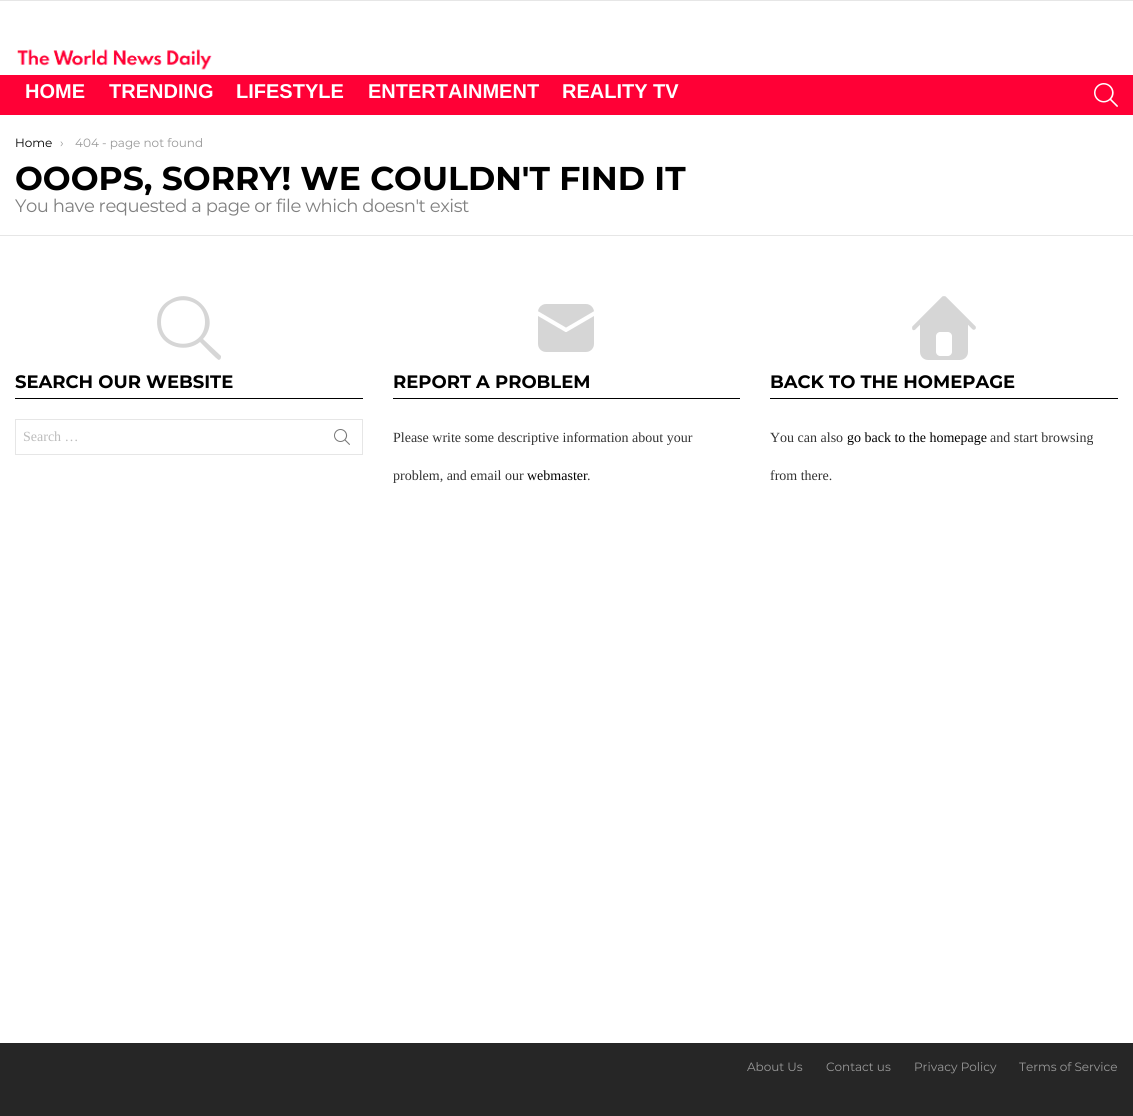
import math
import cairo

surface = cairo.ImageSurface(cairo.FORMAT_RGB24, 1133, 1116)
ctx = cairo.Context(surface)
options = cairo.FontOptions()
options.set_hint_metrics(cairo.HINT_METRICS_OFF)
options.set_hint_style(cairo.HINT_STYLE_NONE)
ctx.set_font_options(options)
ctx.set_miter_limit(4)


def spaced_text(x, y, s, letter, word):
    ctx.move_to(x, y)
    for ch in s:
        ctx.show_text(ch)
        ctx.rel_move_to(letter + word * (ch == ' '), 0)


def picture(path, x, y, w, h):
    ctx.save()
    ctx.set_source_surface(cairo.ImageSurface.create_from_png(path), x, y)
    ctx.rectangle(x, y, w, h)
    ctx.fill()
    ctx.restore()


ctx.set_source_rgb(1, 1, 1)
ctx.paint()
ctx.set_source_rgb(0.902, 0.902, 0.902)
ctx.rectangle(0, 0, 1133, 1)
ctx.fill()
picture("img1.png", 17, 49, 195, 21)
ctx.set_source_rgb(1, 0, 0.212)
ctx.rectangle(0, 75, 1133, 40)
ctx.fill()
ctx.select_font_face("Liberation Sans", cairo.FONT_SLANT_NORMAL, cairo.FONT_WEIGHT_BOLD)
ctx.set_font_size(20)
ctx.set_source_rgb(1, 1, 1)
ctx.move_to(25, 98)
ctx.show_text("HOME")
ctx.move_to(109, 98)
ctx.show_text("TRENDING")
ctx.move_to(236, 98)
ctx.show_text("LIFESTYLE")
ctx.move_to(368, 98)
ctx.show_text("ENTERTAINMENT")
ctx.move_to(562, 98)
ctx.show_text("REALITY TV")
picture("img2.png", 1094, 83, 24, 24)
ctx.select_font_face("Montserrat")
ctx.set_font_size(12)
ctx.set_source_rgb(0, 0, 0)
ctx.move_to(15, 147)
ctx.show_text("Home")
ctx.set_source_rgb(0.6, 0.6, 0.6)
ctx.move_to(60, 147)
ctx.show_text("›")
ctx.move_to(75, 147)
ctx.show_text("404 - page not found")
ctx.select_font_face("Montserrat", cairo.FONT_SLANT_NORMAL, cairo.FONT_WEIGHT_BOLD)
ctx.set_font_size(33)
ctx.set_source_rgb(0, 0, 0)
ctx.move_to(15, 190)
ctx.show_text("OOOPS, SORRY! WE COULDN'T FIND IT")
ctx.select_font_face("Montserrat")
ctx.set_font_size(18)
ctx.set_source_rgb(0.502, 0.502, 0.502)
spaced_text(15, 212, "You have requested a page or file which doesn't exist", -0.45, 0)
ctx.set_source_rgb(0.902, 0.902, 0.902)
ctx.rectangle(0, 235, 1133, 1)
ctx.fill()
ctx.set_source_rgb(0.839, 0.839, 0.839)
ctx.new_path()
ctx.move_to(221, 356)
ctx.line_to(203, 339)
ctx.curve_to(223, 317, 194, 285, 170, 300)
ctx.curve_to(164, 303, 160, 308, 158, 314)
ctx.curve_to(156, 323, 157, 332, 163, 339)
ctx.curve_to(172, 349, 189, 351, 200, 342)
ctx.curve_to(202, 344, 217, 360, 219, 360)
ctx.curve_to(221, 359, 221, 358, 221, 356)
ctx.close_path()
ctx.move_to(161, 322)
ctx.curve_to(161, 293, 205, 293, 205, 322)
ctx.curve_to(205, 351, 161, 351, 161, 322)
ctx.close_path()
ctx.fill()
ctx.set_source_rgb(0, 0, 0)
ctx.rectangle(15, 398, 348, 1)
ctx.fill()
ctx.select_font_face("Montserrat", cairo.FONT_SLANT_NORMAL, cairo.FONT_WEIGHT_BOLD)
ctx.move_to(15, 388)
ctx.show_text("SEARCH OUR WEBSITE")
ctx.rectangle(15.5, 419.5, 347, 35)
ctx.set_source_rgb(0.902, 0.902, 0.902)
ctx.set_line_width(1)
ctx.stroke()
ctx.select_font_face("Liberation Serif")
ctx.set_font_size(14)
ctx.set_source_rgb(0.737, 0.737, 0.737)
ctx.move_to(23, 441)
ctx.show_text("Search …")
picture("img3.png", 334, 429, 16, 16)
picture("img4.png", 538, 304, 56, 48)
ctx.set_source_rgb(0, 0, 0)
ctx.rectangle(393, 398, 347, 1)
ctx.fill()
ctx.select_font_face("Montserrat", cairo.FONT_SLANT_NORMAL, cairo.FONT_WEIGHT_BOLD)
ctx.set_font_size(18)
ctx.move_to(393, 388)
ctx.show_text("REPORT A PROBLEM")
ctx.select_font_face("Liberation Serif")
ctx.set_font_size(14)
ctx.set_source_rgb(0.2, 0.2, 0.2)
ctx.move_to(393, 442)
ctx.show_text("Please write some descriptive information about your")
ctx.move_to(393, 480)
ctx.show_text("problem, and email our")
ctx.set_source_rgb(0, 0, 0)
ctx.move_to(527, 480)
ctx.show_text("webmaster")
ctx.set_source_rgb(0.2, 0.2, 0.2)
ctx.move_to(587, 480)
ctx.show_text(".")
picture("img5.png", 912, 296, 64, 64)
ctx.set_source_rgb(0, 0, 0)
ctx.rectangle(770, 398, 348, 1)
ctx.fill()
ctx.select_font_face("Montserrat", cairo.FONT_SLANT_NORMAL, cairo.FONT_WEIGHT_BOLD)
ctx.set_font_size(18)
ctx.move_to(770, 388)
ctx.show_text("BACK TO THE HOMEPAGE")
ctx.select_font_face("Liberation Serif")
ctx.set_font_size(14)
ctx.set_source_rgb(0.2, 0.2, 0.2)
ctx.move_to(770, 442)
ctx.show_text("You can also")
ctx.set_source_rgb(0, 0, 0)
ctx.move_to(847, 442)
ctx.show_text("go back to the homepage")
ctx.set_source_rgb(0.2, 0.2, 0.2)
ctx.move_to(990, 442)
ctx.show_text("and start browsing")
ctx.move_to(770, 480)
ctx.show_text("from there.")
ctx.set_source_rgb(0.149, 0.149, 0.149)
ctx.rectangle(0, 1043, 1133, 73)
ctx.fill()
ctx.select_font_face("Montserrat")
ctx.set_font_size(12)
ctx.set_source_rgb(0.6, 0.6, 0.6)
ctx.move_to(747, 1071)
ctx.show_text("About Us")
ctx.move_to(826, 1071)
ctx.show_text("Contact us")
ctx.move_to(914, 1071)
ctx.show_text("Privacy Policy")
ctx.move_to(1019, 1071)
ctx.show_text("Terms of Service")
surface.write_to_png("page.png")
